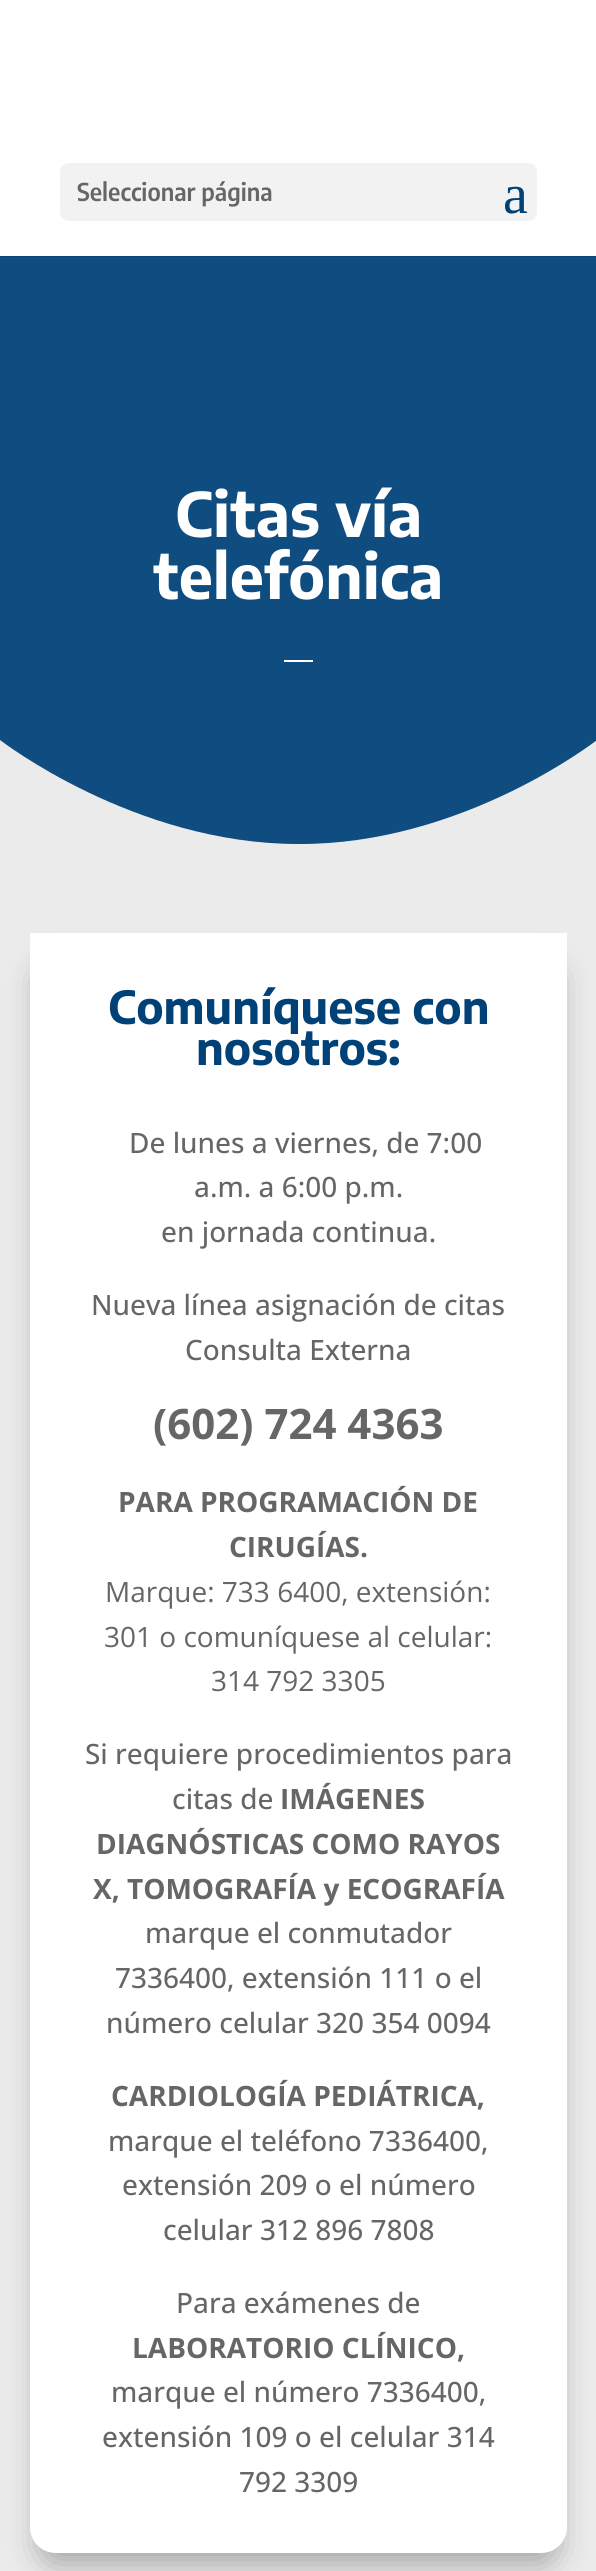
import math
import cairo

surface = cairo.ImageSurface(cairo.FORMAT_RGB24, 596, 2571)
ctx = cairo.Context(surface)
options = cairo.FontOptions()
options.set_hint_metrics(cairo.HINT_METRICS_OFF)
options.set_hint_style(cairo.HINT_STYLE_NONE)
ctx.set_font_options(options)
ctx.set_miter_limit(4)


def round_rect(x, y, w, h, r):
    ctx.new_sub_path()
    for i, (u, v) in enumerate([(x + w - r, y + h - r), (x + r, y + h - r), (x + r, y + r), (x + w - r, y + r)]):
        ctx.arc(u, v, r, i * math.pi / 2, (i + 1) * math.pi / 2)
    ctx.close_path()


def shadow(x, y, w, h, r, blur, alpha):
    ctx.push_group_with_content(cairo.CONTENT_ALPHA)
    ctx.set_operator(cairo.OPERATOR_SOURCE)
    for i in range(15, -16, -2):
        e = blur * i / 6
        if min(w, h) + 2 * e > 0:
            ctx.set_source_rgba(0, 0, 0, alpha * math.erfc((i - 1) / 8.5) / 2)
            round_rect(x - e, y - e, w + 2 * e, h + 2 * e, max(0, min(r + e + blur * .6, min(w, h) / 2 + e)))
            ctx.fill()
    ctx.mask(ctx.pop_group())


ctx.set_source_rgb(0.059, 0.298, 0.502)
ctx.paint()
ctx.set_source_rgb(0.055, 0.267, 0.451)
ctx.new_path()
ctx.move_to(0, 256)
ctx.line_to(0, 257)
ctx.line_to(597, 257)
ctx.line_to(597, -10)
ctx.line_to(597, 256)
ctx.close_path()
ctx.fill()
ctx.set_source_rgb(1, 1, 1)
ctx.rectangle(0, 0, 596, 256)
ctx.fill()
ctx.set_source_rgb(0.949, 0.949, 0.949)
round_rect(60, 163, 477, 58, 9)
ctx.fill()
ctx.select_font_face("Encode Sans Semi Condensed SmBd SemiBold")
ctx.set_font_size(24.5)
ctx.set_source_rgb(0.4, 0.4, 0.4)
ctx.move_to(77, 201)
ctx.show_text("Seleccionar página")
ctx.select_font_face("Liberation Serif")
ctx.set_font_size(56)
ctx.set_source_rgb(0, 0.255, 0.471)
ctx.move_to(503, 213)
ctx.show_text("a")
ctx.select_font_face("Encode Sans Condensed Thin")
ctx.set_font_size(61.25)
ctx.set_source_rgb(1, 1, 1)
ctx.move_to(175, 537)
ctx.show_text("Citas vía")
ctx.move_to(153, 599)
ctx.show_text("telefónica")
ctx.rectangle(284, 660, 29, 2)
ctx.fill()
ctx.set_source_rgb(0.918, 0.918, 0.918)
ctx.new_path()
ctx.move_to(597, 845)
ctx.line_to(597, 740)
ctx.curve_to(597, 740, 463, 845, 298, 844)
ctx.curve_to(134, 844, 0, 740, 0, 740)
ctx.line_to(0, 845)
ctx.close_path()
ctx.fill()
ctx.rectangle(0, 845, 596, 1726)
ctx.fill()
ctx.set_source_rgb(0, 0, 0)
shadow(40, 964, 517, 1600, 16, 16, 0.3)
ctx.set_source_rgb(1, 1, 1)
ctx.new_path()
ctx.move_to(30, 933)
ctx.line_to(567, 933)
ctx.line_to(567, 2527)
ctx.curve_to(567, 2541.5, 555.5, 2553, 541, 2553)
ctx.line_to(56, 2553)
ctx.curve_to(41.5, 2553, 30, 2541.5, 30, 2527)
ctx.close_path()
ctx.fill()
ctx.set_font_size(45.5)
ctx.set_source_rgb(0, 0.255, 0.471)
ctx.move_to(108, 1024)
ctx.show_text("Comuníquese con")
ctx.move_to(196, 1065)
ctx.show_text("nosotros:")
ctx.select_font_face("Open Sans Medium")
ctx.set_font_size(28)
ctx.set_source_rgb(0.4, 0.4, 0.4)
ctx.move_to(129, 1153)
ctx.show_text("De lunes a viernes, de 7:00")
ctx.move_to(194, 1197)
ctx.show_text("a.m. a 6:00 p.m.")
ctx.move_to(161, 1242)
ctx.show_text("en jornada continua.")
ctx.move_to(91, 1315)
ctx.show_text("Nueva línea asignación de citas")
ctx.move_to(185, 1360)
ctx.show_text("Consulta Externa")
ctx.select_font_face("Open Sans", cairo.FONT_SLANT_NORMAL, cairo.FONT_WEIGHT_BOLD)
ctx.set_font_size(42)
ctx.move_to(153, 1439)
ctx.show_text("(602) 724 4363")
ctx.set_font_size(28)
ctx.move_to(118, 1512)
ctx.show_text("PARA PROGRAMACIÓN DE")
ctx.move_to(229, 1557)
ctx.show_text("CIRUGÍAS.")
ctx.select_font_face("Open Sans")
ctx.move_to(105, 1602)
ctx.show_text("Marque: 733 6400, extensión:")
ctx.move_to(104, 1647)
ctx.show_text("301 o comuníquese al celular:")
ctx.move_to(211, 1691)
ctx.show_text("314 792 3305")
ctx.select_font_face("Open Sans Medium")
ctx.move_to(85, 1764)
ctx.show_text("Si requiere procedimientos para")
ctx.move_to(172, 1809)
ctx.show_text("citas de")
ctx.select_font_face("Open Sans", cairo.FONT_SLANT_NORMAL, cairo.FONT_WEIGHT_BOLD)
ctx.move_to(280, 1809)
ctx.show_text("IMÁGENES")
ctx.move_to(96, 1854)
ctx.show_text("DIAGNÓSTICAS COMO RAYOS")
ctx.move_to(93, 1899)
ctx.show_text("X, TOMOGRAFÍA y ECOGRAFÍA")
ctx.select_font_face("Open Sans Medium")
ctx.move_to(145, 1943)
ctx.show_text("marque el conmutador")
ctx.move_to(115, 1988)
ctx.show_text("7336400, extensión 111 o el")
ctx.move_to(106, 2033)
ctx.show_text("número celular 320 354 0094")
ctx.select_font_face("Open Sans", cairo.FONT_SLANT_NORMAL, cairo.FONT_WEIGHT_BOLD)
ctx.move_to(111, 2106)
ctx.show_text("CARDIOLOGÍA PEDIÁTRICA,")
ctx.select_font_face("Open Sans Medium")
ctx.move_to(108, 2151)
ctx.show_text("marque el teléfono 7336400,")
ctx.move_to(122, 2195)
ctx.show_text("extensión 209 o el número")
ctx.move_to(163, 2240)
ctx.show_text("celular 312 896 7808")
ctx.move_to(176, 2313)
ctx.show_text("Para exámenes de")
ctx.select_font_face("Open Sans", cairo.FONT_SLANT_NORMAL, cairo.FONT_WEIGHT_BOLD)
ctx.move_to(132, 2358)
ctx.show_text("LABORATORIO CLÍNICO,")
ctx.select_font_face("Open Sans Medium")
ctx.move_to(111, 2402)
ctx.show_text("marque el número 7336400,")
ctx.move_to(102, 2447)
ctx.show_text("extensión 109 o el celular 314")
ctx.move_to(239, 2492)
ctx.show_text("792 3309")
surface.write_to_png("page.png")
